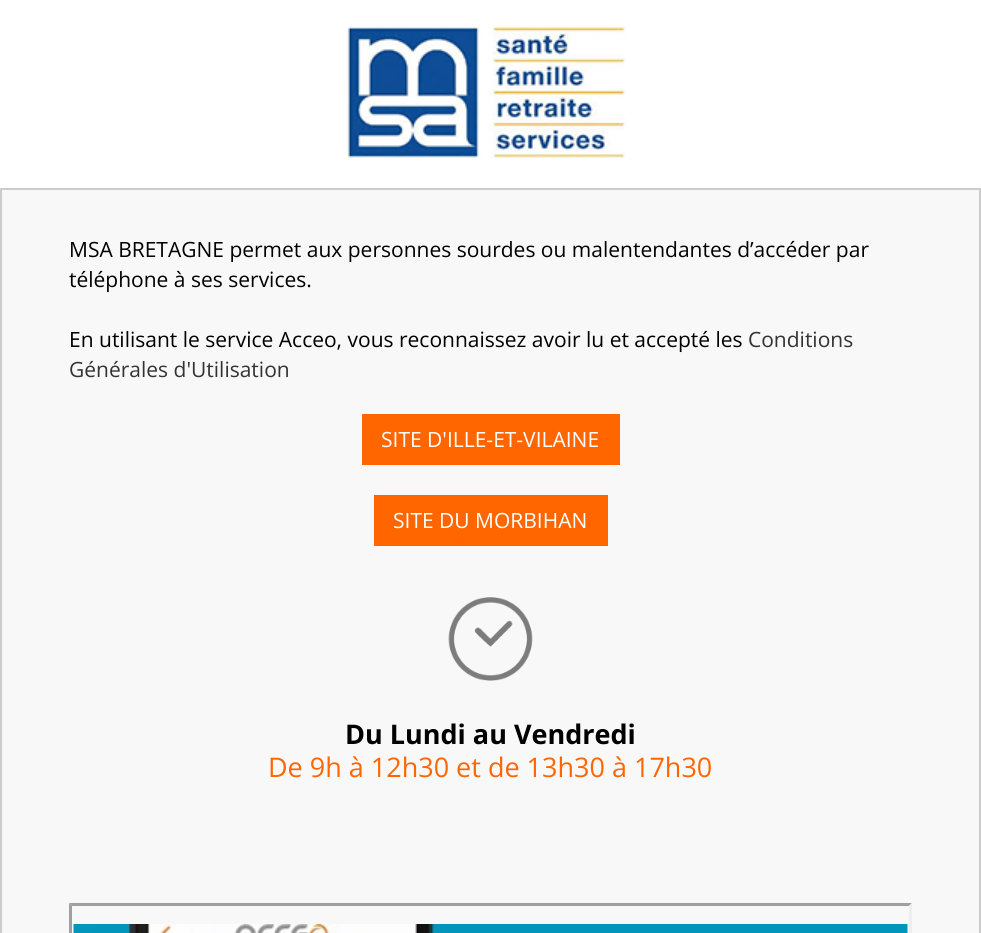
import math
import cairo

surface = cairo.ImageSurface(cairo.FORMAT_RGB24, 981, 933)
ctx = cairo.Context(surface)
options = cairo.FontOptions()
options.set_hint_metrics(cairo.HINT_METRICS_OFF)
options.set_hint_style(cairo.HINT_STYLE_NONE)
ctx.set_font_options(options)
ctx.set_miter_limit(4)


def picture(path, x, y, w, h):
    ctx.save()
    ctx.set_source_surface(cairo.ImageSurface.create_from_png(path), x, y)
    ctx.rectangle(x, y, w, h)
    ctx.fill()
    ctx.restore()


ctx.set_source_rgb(1, 1, 1)
ctx.paint()
picture("img1.png", 347, 26, 279, 133)
ctx.set_source_rgb(0.969, 0.969, 0.976)
ctx.rectangle(1, 189, 979, 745)
ctx.fill_preserve()
ctx.set_source_rgb(0.8, 0.8, 0.8)
ctx.stroke()
ctx.select_font_face("Open Sans")
ctx.set_font_size(21)
ctx.set_source_rgb(0, 0, 0)
ctx.move_to(69, 257)
ctx.show_text("MSA BRETAGNE permet aux personnes sourdes ou malentendantes d’accéder par")
ctx.move_to(69, 287)
ctx.show_text("téléphone à ses services.")
ctx.move_to(69, 347)
ctx.show_text("En utilisant le service Acceo, vous reconnaissez avoir lu et accepté les")
ctx.set_source_rgb(0.2, 0.2, 0.2)
ctx.move_to(748, 347)
ctx.show_text("Conditions")
ctx.move_to(69, 377)
ctx.show_text("Générales d'Utilisation")
ctx.set_source_rgb(1, 0.4, 0)
ctx.rectangle(362, 414, 258, 51)
ctx.fill()
ctx.set_source_rgb(1, 1, 1)
ctx.move_to(381, 447)
ctx.show_text("SITE D'ILLE-ET-VILAINE")
ctx.set_source_rgb(1, 0.4, 0)
ctx.rectangle(374, 495, 234, 51)
ctx.fill()
ctx.set_source_rgb(1, 1, 1)
ctx.move_to(393, 528)
ctx.show_text("SITE DU MORBIHAN")
picture("img2.png", 448, 597, 85, 84)
ctx.select_font_face("Open Sans", cairo.FONT_SLANT_NORMAL, cairo.FONT_WEIGHT_BOLD)
ctx.set_font_size(27)
ctx.set_source_rgb(0, 0, 0)
ctx.move_to(345, 744)
ctx.show_text("Du Lundi au Vendredi")
ctx.select_font_face("Open Sans")
ctx.set_source_rgb(1, 0.4, 0)
ctx.move_to(268, 777)
ctx.show_text("De 9h à 12h30 et de 13h30 à 17h30")
ctx.set_source_rgb(0.624, 0.624, 0.624)
ctx.new_path()
ctx.move_to(69, 903)
ctx.line_to(912, 903)
ctx.line_to(909, 906)
ctx.line_to(72, 906)
ctx.close_path()
ctx.fill()
ctx.set_source_rgb(0.933, 0.933, 0.933)
ctx.new_path()
ctx.move_to(912, 903)
ctx.line_to(912, 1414)
ctx.line_to(909, 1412)
ctx.line_to(909, 906)
ctx.close_path()
ctx.fill()
ctx.set_source_rgb(0.624, 0.624, 0.624)
ctx.new_path()
ctx.move_to(69, 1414)
ctx.line_to(69, 903)
ctx.line_to(72, 906)
ctx.line_to(72, 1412)
ctx.close_path()
ctx.fill()
picture("img3.png", 73, 924, 835, 9)
surface.write_to_png("page.png")
